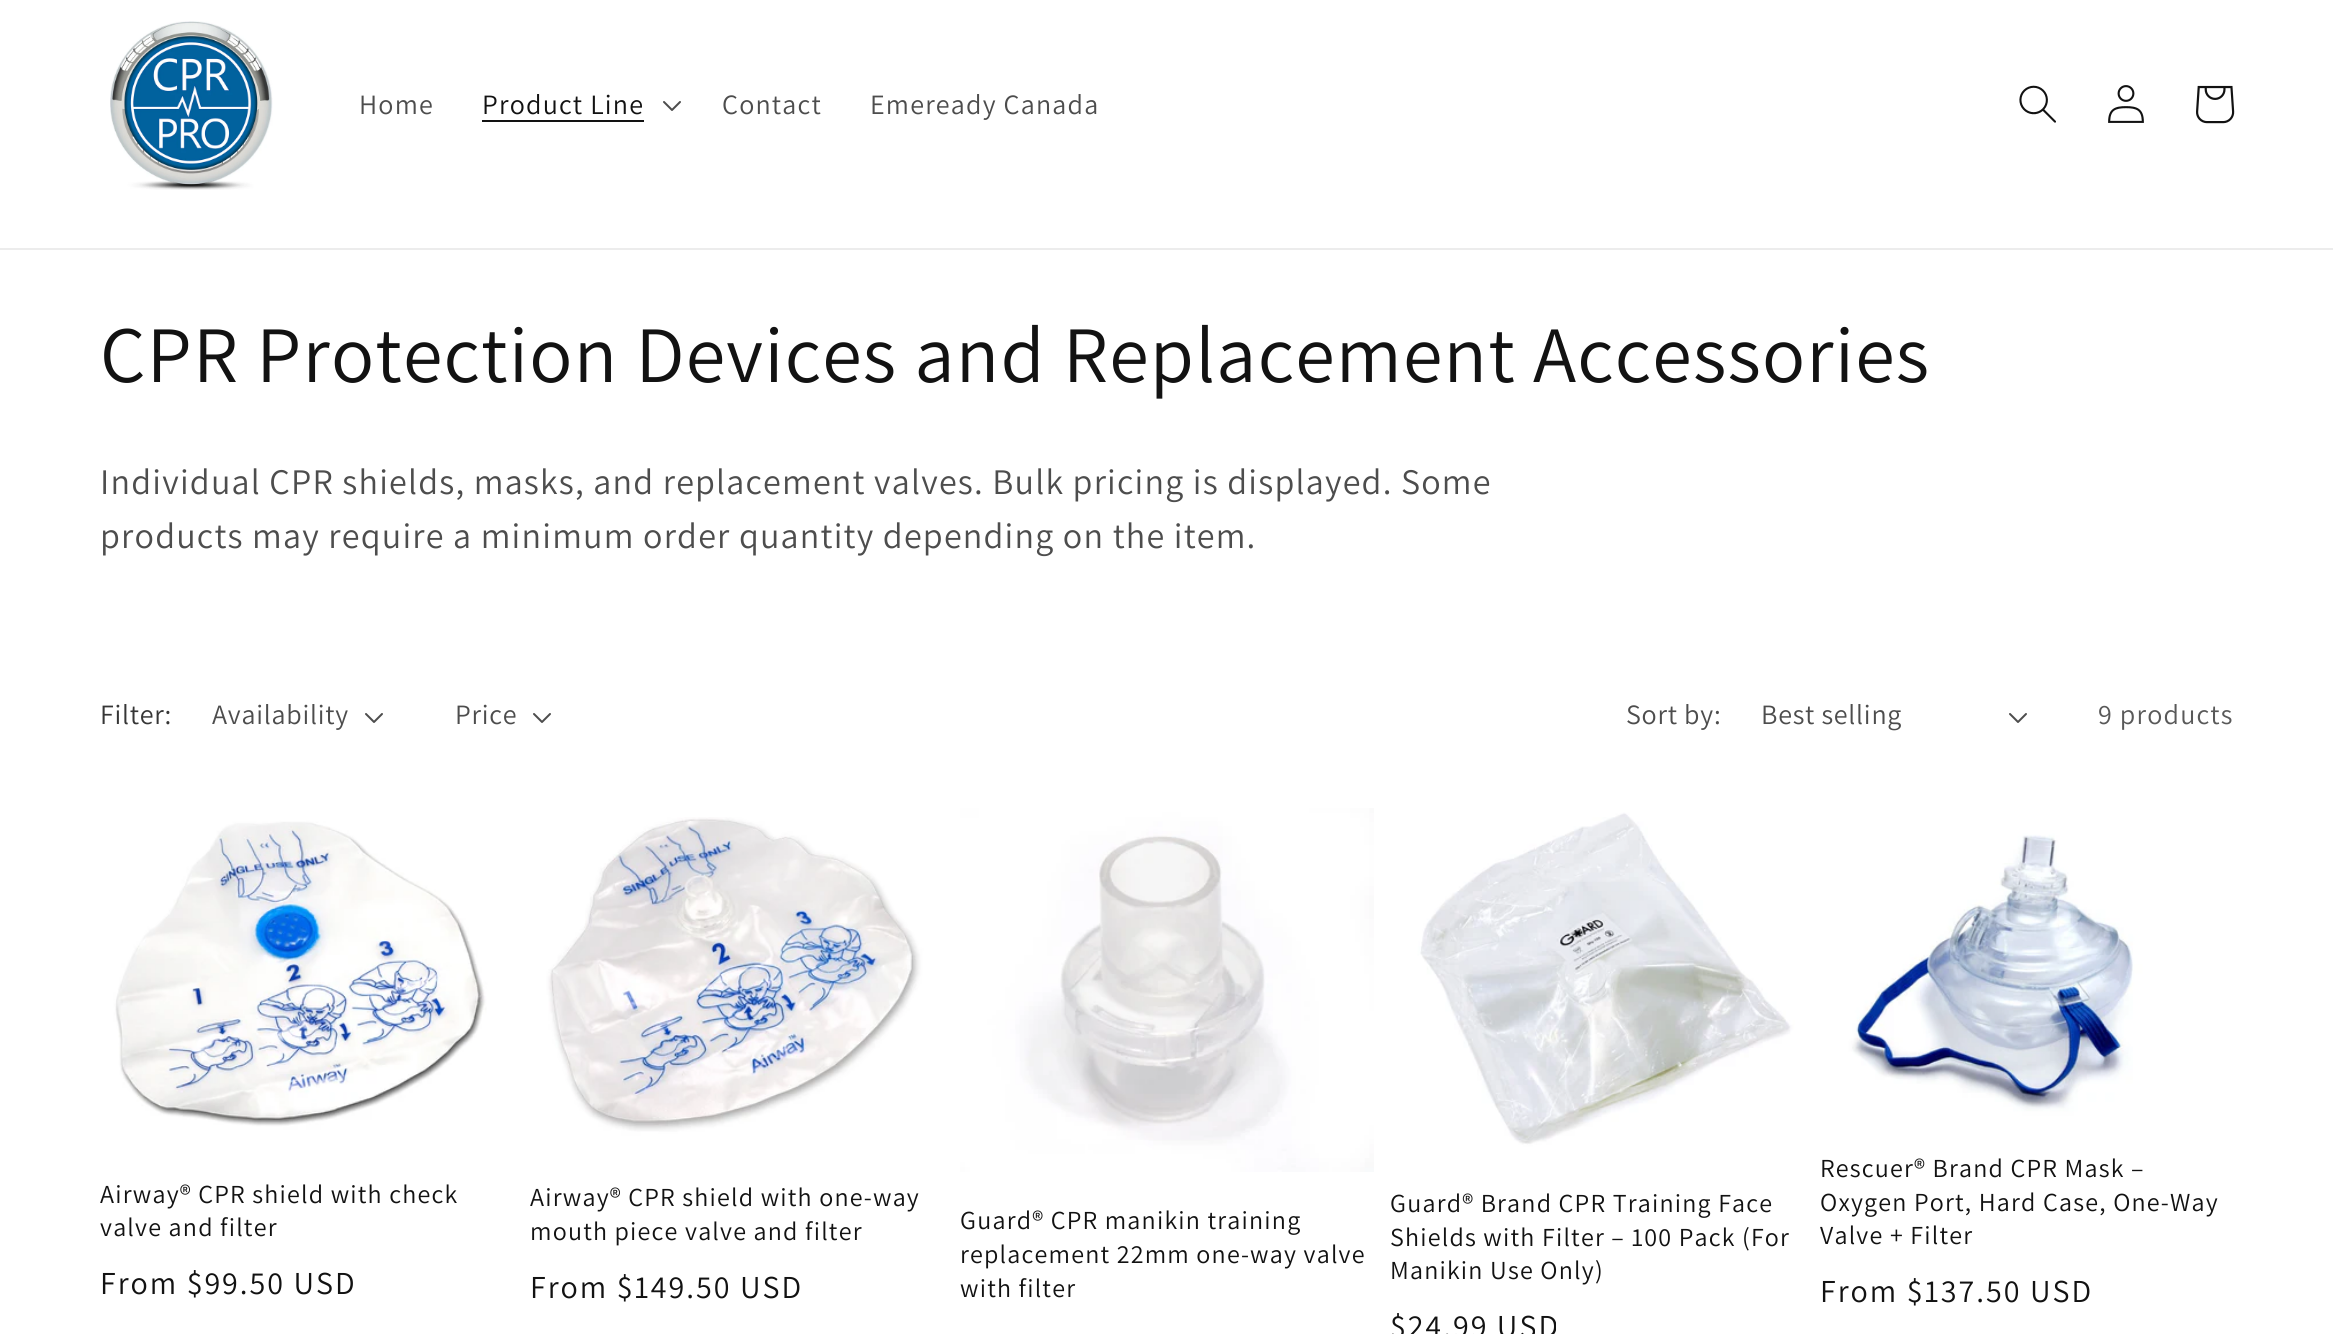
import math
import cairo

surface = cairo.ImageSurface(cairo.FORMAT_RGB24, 2333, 1334)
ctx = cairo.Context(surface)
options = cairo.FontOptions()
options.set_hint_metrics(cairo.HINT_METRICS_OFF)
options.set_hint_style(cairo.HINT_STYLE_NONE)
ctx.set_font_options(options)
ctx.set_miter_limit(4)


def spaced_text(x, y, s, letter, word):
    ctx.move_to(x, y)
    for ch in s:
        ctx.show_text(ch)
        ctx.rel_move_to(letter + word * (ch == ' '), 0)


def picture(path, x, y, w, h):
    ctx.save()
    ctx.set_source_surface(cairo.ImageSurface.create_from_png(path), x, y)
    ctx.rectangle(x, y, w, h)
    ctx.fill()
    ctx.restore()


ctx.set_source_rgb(1, 1, 1)
ctx.paint()
ctx.set_source_rgb(0.925, 0.925, 0.925)
ctx.rectangle(0, 248, 2333, 2)
ctx.fill()
picture("img1.png", 110, 21, 163, 169)
ctx.select_font_face("Assistant")
ctx.set_font_size(28)
ctx.set_source_rgb(0.302, 0.302, 0.302)
spaced_text(359, 114, "Home", 1.2, 0)
ctx.set_source_rgb(0.071, 0.071, 0.071)
spaced_text(482, 114, "Product Line", 1.2, 0)
ctx.rectangle(482, 120, 162, 2)
ctx.fill()
picture("img2.png", 663, 101, 18, 10)
ctx.set_source_rgb(0.302, 0.302, 0.302)
spaced_text(722, 114, "Contact", 1.2, 0)
spaced_text(870, 114, "Emeready Canada", 1.2, 0)
picture("img3.png", 2019, 85, 37, 38)
picture("img4.png", 2108, 85, 36, 38)
picture("img5.png", 2196, 85, 39, 39)
ctx.set_font_size(80)
ctx.set_source_rgb(0.071, 0.071, 0.071)
spaced_text(100, 382, "CPR Protection Devices and Replacement Accessories", 1.2, 0)
ctx.set_font_size(36)
ctx.set_source_rgb(0.302, 0.302, 0.302)
spaced_text(100, 494, "Individual CPR shields, masks, and replacement valves. Bulk pricing is displayed. Some", 1.2, 0)
spaced_text(100, 548, "products may require a minimum order quantity depending on the item.", 1.2, 0)
ctx.set_font_size(28)
ctx.set_source_rgb(0.212, 0.212, 0.212)
spaced_text(100, 724, "Filter:", 0.75, 0)
ctx.set_source_rgb(0.302, 0.302, 0.302)
spaced_text(212, 724, "Availability", 0.75, 0)
picture("img2.png", 365, 713, 18, 10)
spaced_text(455, 724, "Price", 0.75, 0)
picture("img2.png", 533, 713, 18, 10)
spaced_text(1626, 724, "Sort by:", 0.75, 0)
spaced_text(1761, 724, "Best selling", 0.75, 0)
picture("img2.png", 2009, 713, 18, 10)
ctx.set_source_rgb(0.349, 0.349, 0.349)
spaced_text(2098, 724, "9 products", 1.2, 0)
picture("img6.png", 100, 808, 414, 336)
ctx.set_font_size(26)
ctx.set_source_rgb(0.071, 0.071, 0.071)
spaced_text(100, 1203, "Airway® CPR shield with check", 1.2, 0)
spaced_text(100, 1236, "valve and filter", 1.2, 0)
ctx.set_font_size(32)
spaced_text(100, 1294, "From $99.50 USD", 2, 0)
picture("img7.png", 530, 808, 414, 340)
ctx.set_font_size(26)
spaced_text(530, 1206, "Airway® CPR shield with one-way", 1.2, 0)
spaced_text(530, 1240, "mouth piece valve and filter", 1.2, 0)
ctx.set_font_size(32)
spaced_text(530, 1298, "From $149.50 USD", 2, 0)
picture("img8.png", 960, 808, 414, 364)
ctx.set_font_size(26)
spaced_text(960, 1229, "Guard® CPR manikin training", 1.2, 0)
spaced_text(960, 1263, "replacement 22mm one-way valve", 1.2, 0)
spaced_text(960, 1297, "with filter", 1.2, 0)
picture("img9.png", 1390, 808, 414, 346)
spaced_text(1390, 1212, "Guard® Brand CPR Training Face", 1.2, 0)
spaced_text(1390, 1246, "Shields with Filter – 100 Pack (For", 1.2, 0)
spaced_text(1390, 1279, "Manikin Use Only)", 1.2, 0)
ctx.set_font_size(32)
spaced_text(1390, 1337, "$24.99 USD", 2, 0)
picture("img10.png", 1820, 808, 414, 310)
ctx.set_font_size(26)
spaced_text(1820, 1177, "Rescuer® Brand CPR Mask –", 1.2, 0)
spaced_text(1820, 1211, "Oxygen Port, Hard Case, One-Way", 1.2, 0)
spaced_text(1820, 1244, "Valve + Filter", 1.2, 0)
ctx.set_font_size(32)
spaced_text(1820, 1302, "From $137.50 USD", 2, 0)
surface.write_to_png("page.png")
